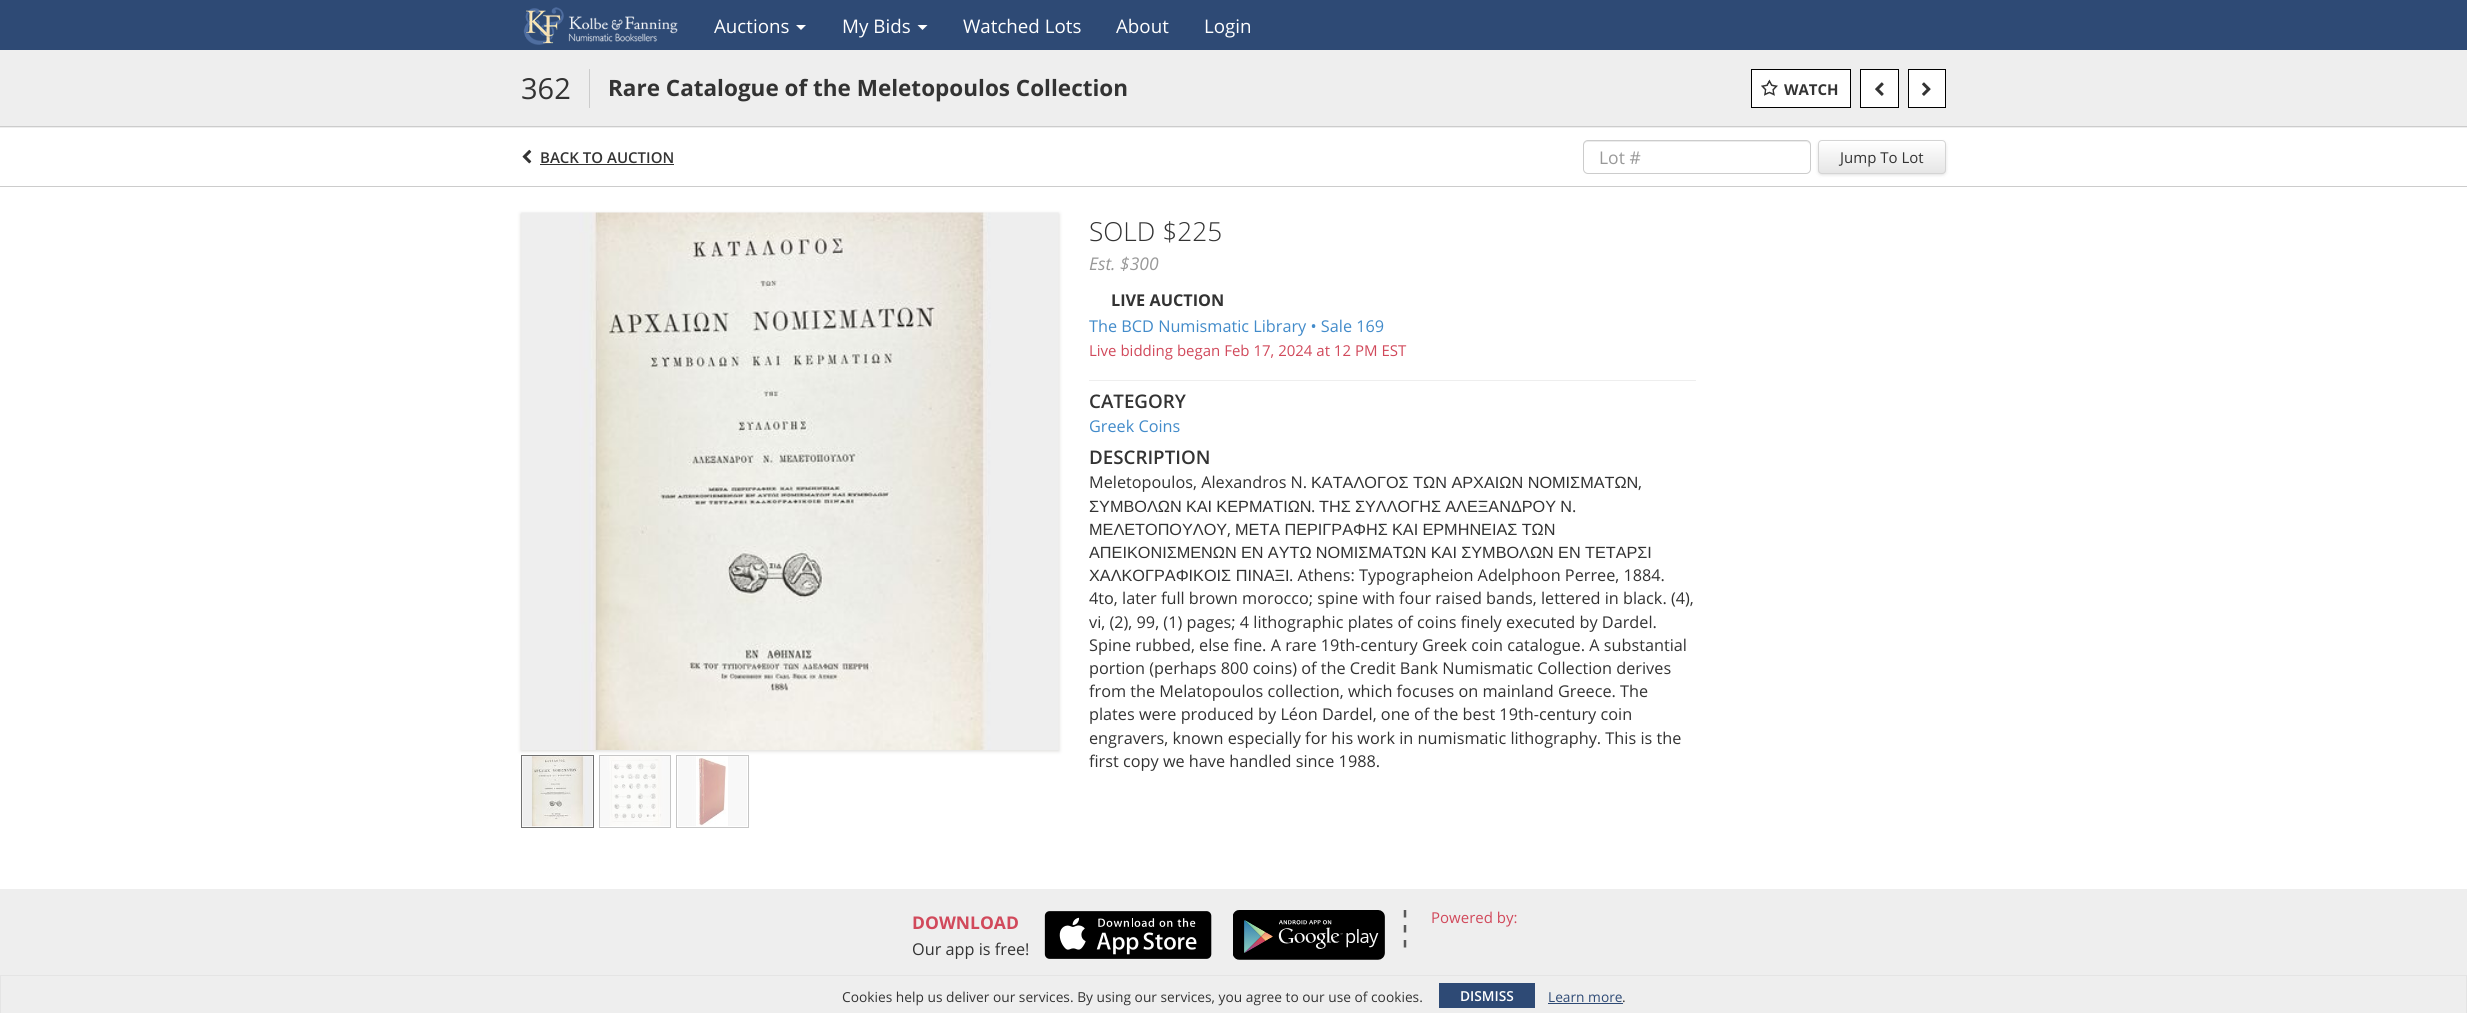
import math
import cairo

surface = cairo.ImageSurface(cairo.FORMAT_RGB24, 2467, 1013)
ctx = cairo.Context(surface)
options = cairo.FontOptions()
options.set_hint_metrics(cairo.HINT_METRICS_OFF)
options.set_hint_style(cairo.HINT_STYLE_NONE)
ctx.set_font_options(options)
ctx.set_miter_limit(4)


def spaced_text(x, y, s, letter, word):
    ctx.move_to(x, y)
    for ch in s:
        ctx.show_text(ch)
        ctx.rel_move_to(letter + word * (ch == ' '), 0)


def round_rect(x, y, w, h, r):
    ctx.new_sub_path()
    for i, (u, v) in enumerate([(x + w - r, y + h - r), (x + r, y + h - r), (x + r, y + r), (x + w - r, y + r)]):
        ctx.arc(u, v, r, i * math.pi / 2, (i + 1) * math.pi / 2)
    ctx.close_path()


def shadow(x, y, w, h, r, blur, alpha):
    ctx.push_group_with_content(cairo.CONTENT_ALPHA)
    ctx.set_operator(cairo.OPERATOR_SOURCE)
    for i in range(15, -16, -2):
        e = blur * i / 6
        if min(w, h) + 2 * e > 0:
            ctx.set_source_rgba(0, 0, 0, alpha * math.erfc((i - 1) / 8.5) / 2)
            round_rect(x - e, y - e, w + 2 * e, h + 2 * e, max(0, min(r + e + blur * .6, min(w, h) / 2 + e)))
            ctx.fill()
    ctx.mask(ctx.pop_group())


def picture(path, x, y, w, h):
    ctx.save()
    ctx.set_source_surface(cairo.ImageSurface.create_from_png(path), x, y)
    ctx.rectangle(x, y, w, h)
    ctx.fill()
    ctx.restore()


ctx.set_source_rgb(1, 1, 1)
ctx.paint()
ctx.set_source_rgb(0.18, 0.29, 0.459)
ctx.rectangle(0, 0, 2467, 50)
ctx.fill()
picture("img1.png", 523, 7, 155, 38)
ctx.select_font_face("Open Sans")
ctx.set_font_size(18.75)
ctx.set_source_rgb(1, 1, 1)
ctx.move_to(714, 33)
ctx.show_text("Auctions")
ctx.new_path()
ctx.move_to(796, 25)
ctx.line_to(806, 25)
ctx.line_to(801, 30)
ctx.close_path()
ctx.fill()
ctx.move_to(842, 33)
ctx.show_text("My Bids")
ctx.new_path()
ctx.move_to(917.5, 25)
ctx.line_to(927.5, 25)
ctx.line_to(922.5, 30)
ctx.close_path()
ctx.fill()
ctx.move_to(963, 33)
ctx.show_text("Watched Lots")
ctx.move_to(1116, 33)
ctx.show_text("About")
ctx.move_to(1204, 33)
ctx.show_text("Login")
ctx.set_source_rgb(0.933, 0.933, 0.933)
ctx.rectangle(0, 50, 2467, 78)
ctx.fill()
ctx.set_source_rgb(0.8, 0.8, 0.8)
ctx.rectangle(0, 126, 2467, 1)
ctx.fill()
ctx.set_source_rgb(0.933, 0.933, 0.933)
ctx.rectangle(521, 126, 1425, 1)
ctx.fill()
ctx.set_source_rgb(0.8, 0.8, 0.8)
ctx.rectangle(521, 126, 1425, 1)
ctx.fill()
ctx.set_font_size(29)
ctx.set_source_rgb(0.2, 0.2, 0.2)
ctx.move_to(521, 99)
ctx.show_text("362")
ctx.set_source_rgb(0.8, 0.8, 0.8)
ctx.rectangle(589, 69, 1, 39)
ctx.fill()
ctx.select_font_face("Open Sans", cairo.FONT_SLANT_NORMAL, cairo.FONT_WEIGHT_BOLD)
ctx.set_font_size(22.5)
ctx.set_source_rgb(0.2, 0.2, 0.2)
ctx.move_to(608, 96)
ctx.show_text("Rare Catalogue of the Meletopoulos Collection")
ctx.set_source_rgb(1, 1, 1)
ctx.rectangle(1751.5, 69.5, 99, 38)
ctx.fill_preserve()
ctx.set_source_rgb(0, 0, 0)
ctx.set_line_width(1)
ctx.stroke()
picture("img2.png", 1761, 79, 17, 17)
ctx.set_font_size(15)
ctx.set_source_rgb(0.2, 0.2, 0.2)
ctx.move_to(1784, 95)
ctx.show_text("WATCH")
ctx.set_source_rgb(1, 1, 1)
ctx.rectangle(1860.5, 69.5, 38, 38)
ctx.fill_preserve()
ctx.set_source_rgb(0, 0, 0)
ctx.stroke()
picture("img3.png", 1875, 82, 9, 14)
ctx.set_source_rgb(1, 1, 1)
ctx.rectangle(1908.5, 69.5, 37, 38)
ctx.fill_preserve()
ctx.set_source_rgb(0, 0, 0)
ctx.stroke()
picture("img4.png", 1922, 82, 9, 14)
ctx.set_source_rgb(0.8, 0.8, 0.8)
ctx.rectangle(0, 186, 2467, 1)
ctx.fill()
ctx.set_source_rgb(1, 1, 1)
ctx.rectangle(521, 186, 1425, 1)
ctx.fill()
ctx.set_source_rgb(0.8, 0.8, 0.8)
ctx.rectangle(521, 186, 1425, 1)
ctx.fill()
picture("img5.png", 522, 149, 10, 15)
ctx.select_font_face("Open Sans SemiBold")
ctx.set_source_rgb(0.2, 0.2, 0.2)
ctx.move_to(540, 163)
ctx.show_text("BACK TO AUCTION")
ctx.rectangle(540, 164, 134, 1)
ctx.fill()
ctx.set_source_rgb(0.925, 0.925, 0.925)
ctx.new_path()
ctx.move_to(1588, 142)
ctx.line_to(1806, 142)
ctx.curve_to(1808, 142, 1810, 144, 1810, 146)
ctx.curve_to(1810, 143, 1809, 141, 1806, 141)
ctx.line_to(1588, 141)
ctx.curve_to(1585, 141, 1584, 143, 1584, 146)
ctx.curve_to(1584, 144, 1585, 142, 1588, 142)
ctx.close_path()
ctx.fill()
round_rect(1583.5, 140.5, 227, 33, 4.5)
ctx.set_source_rgb(0.8, 0.8, 0.8)
ctx.stroke()
ctx.select_font_face("Open Sans")
ctx.set_font_size(17.5)
ctx.set_source_rgb(0.6, 0.6, 0.6)
ctx.move_to(1599, 164)
ctx.show_text("Lot #")
ctx.set_source_rgb(0, 0, 0)
shadow(1819, 143, 126, 31, 2.5, 2, 0.2)
ctx.save()
round_rect(1818, 140, 128, 34, 4)
ctx.clip()
gradient = cairo.LinearGradient(1882, 141, 1882, 173)
gradient.add_color_stop_rgba(0, 1, 1, 1, 1)
gradient.add_color_stop_rgba(1, 0.902, 0.902, 0.902, 1)
ctx.set_source(gradient)
ctx.rectangle(1818, 141, 128, 32)
ctx.fill()
ctx.restore()
round_rect(1818.5, 140.5, 127, 33, 3.5)
ctx.set_source_rgb(0.831, 0.831, 0.831)
ctx.stroke()
ctx.set_font_size(15)
ctx.set_source_rgb(0.2, 0.2, 0.2)
ctx.move_to(1840, 163)
ctx.show_text("Jump To Lot")
ctx.set_source_rgb(0.855, 0.851, 0.843)
shadow(521, 214, 538, 537, 0, 2, 1)
picture("img6.png", 521, 212, 538, 538)
ctx.rectangle(521.5, 755.5, 72, 72)
ctx.set_source_rgb(0.443, 0.443, 0.443)
ctx.stroke()
ctx.rectangle(599.5, 755.5, 71, 72)
ctx.set_source_rgb(0.776, 0.776, 0.776)
ctx.stroke()
ctx.rectangle(676.5, 755.5, 72, 72)
ctx.stroke()
picture("img7.png", 522, 756, 71, 71)
picture("img8.png", 600, 756, 70, 70)
picture("img9.png", 678, 756, 69, 70)
ctx.select_font_face("Open Sans Light")
ctx.set_font_size(26.25)
ctx.set_source_rgb(0.2, 0.2, 0.2)
ctx.move_to(1089, 241)
ctx.show_text("SOLD $225")
ctx.select_font_face("Open Sans", cairo.FONT_SLANT_ITALIC)
ctx.set_font_size(17.5)
ctx.set_source_rgb(0.6, 0.6, 0.6)
ctx.move_to(1089, 270)
ctx.show_text("Est. $300")
ctx.select_font_face("Open Sans", cairo.FONT_SLANT_NORMAL, cairo.FONT_WEIGHT_BOLD)
ctx.set_font_size(16.25)
ctx.set_source_rgb(0.2, 0.2, 0.2)
ctx.move_to(1111, 306)
ctx.show_text("LIVE AUCTION")
ctx.select_font_face("Open Sans")
ctx.set_source_rgb(0.259, 0.545, 0.792)
ctx.move_to(1089, 332)
ctx.show_text("The BCD Numismatic Library • Sale 169")
ctx.set_font_size(15)
ctx.set_source_rgb(0.82, 0.286, 0.357)
ctx.move_to(1089, 356)
ctx.show_text("Live bidding began Feb 17, 2024 at 12 PM EST")
ctx.set_source_rgb(0.933, 0.933, 0.933)
ctx.rectangle(1089, 380, 607, 1)
ctx.fill()
ctx.select_font_face("Open Sans SemiBold")
ctx.set_font_size(18.75)
ctx.set_source_rgb(0.2, 0.2, 0.2)
ctx.move_to(1089, 408)
ctx.show_text("CATEGORY")
ctx.select_font_face("Open Sans")
ctx.set_font_size(16.25)
ctx.set_source_rgb(0.259, 0.545, 0.792)
ctx.move_to(1089, 432)
ctx.show_text("Greek Coins")
ctx.select_font_face("Open Sans SemiBold")
ctx.set_font_size(18.75)
ctx.set_source_rgb(0.2, 0.2, 0.2)
ctx.move_to(1089, 464)
ctx.show_text("DESCRIPTION")
ctx.select_font_face("Open Sans")
ctx.set_font_size(16.25)
ctx.move_to(1089, 488)
ctx.show_text("Meletopoulos, Alexandros N.")
ctx.select_font_face("Liberation Sans")
ctx.move_to(1311, 488)
ctx.show_text("ΚΑΤΑΛΟΓΟΣ ΤΩΝ ΑΡΧΑΙΩΝ ΝΟΜΙΣΜΑΤΩΝ")
ctx.select_font_face("Open Sans")
ctx.move_to(1638, 488)
ctx.show_text(",")
ctx.select_font_face("Liberation Sans")
spaced_text(1089, 512, "ΣΥΜΒΟΛΩΝ ΚΑΙ ΚΕΡΜΑΤΙΩΝ", 0, -0.25)
ctx.select_font_face("Open Sans")
ctx.move_to(1311, 512)
ctx.show_text(".")
ctx.select_font_face("Liberation Sans")
spaced_text(1319, 512, "ΤΗΣ ΣΥΛΛΟΓΗΣ ΑΛΕΞΑΝΔΡΟΥ Ν", 0, -0.25)
ctx.select_font_face("Open Sans")
ctx.move_to(1572, 512)
ctx.show_text(".")
ctx.select_font_face("Liberation Sans")
ctx.move_to(1089, 535)
ctx.show_text("ΜΕΛΕΤΟΠΟΥΛΟΥ")
ctx.select_font_face("Open Sans")
ctx.move_to(1227, 535)
ctx.show_text(",")
ctx.select_font_face("Liberation Sans")
spaced_text(1235, 535, "ΜΕΤΑ ΠΕΡΙΓΡΑΦΗΣ ΚΑΙ ΕΡΜΗΝΕΙΑΣ ΤΩΝ", 0, -0.25)
spaced_text(1089, 558, "ΑΠΕΙΚΟΝΙΣΜΕΝΩΝ ΕΝ ΑΥΤΩ ΝΟΜΙΣΜΑΤΩΝ ΚΑΙ ΣΥΜΒΟΛΩΝ ΕΝ ΤΕΤΑΡΣΙ", 0, -0.25)
ctx.move_to(1089, 581)
ctx.show_text("ΧΑΛΚΟΓΡΑΦΙΚΟΙΣ ΠΙΝΑΞΙ")
ctx.select_font_face("Open Sans")
ctx.move_to(1289, 581)
ctx.show_text(". Athens: Typographeion Adelphoon Perree, 1884.")
ctx.move_to(1089, 604)
ctx.show_text("4to, later full brown morocco; spine with four raised bands, lettered in black. (4),")
ctx.move_to(1089, 628)
ctx.show_text("vi, (2), 99, (1) pages; 4 lithographic plates of coins finely executed by Dardel.")
ctx.move_to(1089, 651)
ctx.show_text("Spine rubbed, else fine. A rare 19th-century Greek coin catalogue. A substantial")
ctx.move_to(1089, 674)
ctx.show_text("portion (perhaps 800 coins) of the Credit Bank Numismatic Collection derives")
ctx.move_to(1089, 697)
ctx.show_text("from the Melatopoulos collection, which focuses on mainland Greece. The")
ctx.move_to(1089, 720)
ctx.show_text("plates were produced by Léon Dardel, one of the best 19th-century coin")
ctx.move_to(1089, 744)
ctx.show_text("engravers, known especially for his work in numismatic lithography. This is the")
ctx.move_to(1089, 767)
ctx.show_text("first copy we have handled since 1988.")
ctx.set_source_rgb(0.933, 0.933, 0.933)
ctx.rectangle(0, 889, 2467, 86)
ctx.fill()
ctx.select_font_face("Open Sans", cairo.FONT_SLANT_NORMAL, cairo.FONT_WEIGHT_BOLD)
ctx.set_font_size(17.5)
ctx.set_source_rgb(0.82, 0.286, 0.357)
ctx.move_to(912, 929)
ctx.show_text("DOWNLOAD")
ctx.select_font_face("Open Sans")
ctx.set_font_size(16.25)
ctx.set_source_rgb(0.2, 0.2, 0.2)
ctx.move_to(912, 955)
ctx.show_text("Our app is free!")
picture("img10.png", 1044, 911, 168, 48)
picture("img11.png", 1233, 910, 152, 50)
ctx.new_path()
ctx.move_to(1405, 910)
ctx.line_to(1405, 917.5)
ctx.move_to(1405, 925)
ctx.line_to(1405, 932.5)
ctx.move_to(1405, 940)
ctx.line_to(1405, 947.5)
ctx.set_source_rgb(0.349, 0.349, 0.349)
ctx.set_line_width(2.5)
ctx.stroke()
ctx.set_font_size(15)
ctx.set_source_rgb(0.82, 0.286, 0.357)
ctx.move_to(1431, 923)
ctx.show_text("Powered by:")
ctx.set_source_rgb(0.933, 0.933, 0.933)
ctx.rectangle(1, 976, 2465, 37)
ctx.fill()
ctx.set_source_rgb(0.894, 0.894, 0.894)
ctx.rectangle(0, 975, 2467, 1)
ctx.fill()
ctx.rectangle(2466, 975, 1, 38)
ctx.fill()
ctx.rectangle(0, 975, 1, 38)
ctx.fill()
ctx.set_font_size(13.75)
ctx.set_source_rgb(0.2, 0.2, 0.2)
ctx.move_to(842, 1002)
ctx.show_text("Cookies help us deliver our services. By using our services, you agree to our use of cookies.")
ctx.set_source_rgb(0.18, 0.29, 0.459)
ctx.rectangle(1439, 983, 96, 25)
ctx.fill()
ctx.select_font_face("Open Sans SemiBold")
ctx.set_source_rgb(1, 1, 1)
ctx.move_to(1460, 1001)
ctx.show_text("DISMISS")
ctx.select_font_face("Open Sans")
ctx.set_source_rgb(0.18, 0.29, 0.459)
ctx.move_to(1548, 1002)
ctx.show_text("Learn more")
ctx.rectangle(1548, 1003, 75, 1)
ctx.fill()
ctx.set_source_rgb(0.2, 0.2, 0.2)
ctx.move_to(1622, 1002)
ctx.show_text(".")
surface.write_to_png("page.png")
